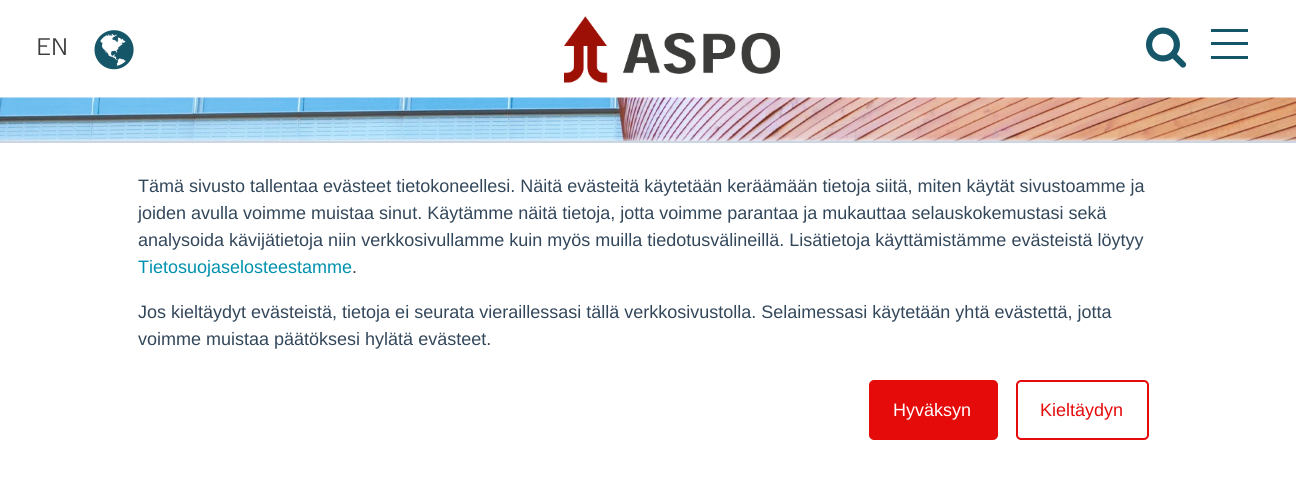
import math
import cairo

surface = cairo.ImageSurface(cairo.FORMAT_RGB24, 1296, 478)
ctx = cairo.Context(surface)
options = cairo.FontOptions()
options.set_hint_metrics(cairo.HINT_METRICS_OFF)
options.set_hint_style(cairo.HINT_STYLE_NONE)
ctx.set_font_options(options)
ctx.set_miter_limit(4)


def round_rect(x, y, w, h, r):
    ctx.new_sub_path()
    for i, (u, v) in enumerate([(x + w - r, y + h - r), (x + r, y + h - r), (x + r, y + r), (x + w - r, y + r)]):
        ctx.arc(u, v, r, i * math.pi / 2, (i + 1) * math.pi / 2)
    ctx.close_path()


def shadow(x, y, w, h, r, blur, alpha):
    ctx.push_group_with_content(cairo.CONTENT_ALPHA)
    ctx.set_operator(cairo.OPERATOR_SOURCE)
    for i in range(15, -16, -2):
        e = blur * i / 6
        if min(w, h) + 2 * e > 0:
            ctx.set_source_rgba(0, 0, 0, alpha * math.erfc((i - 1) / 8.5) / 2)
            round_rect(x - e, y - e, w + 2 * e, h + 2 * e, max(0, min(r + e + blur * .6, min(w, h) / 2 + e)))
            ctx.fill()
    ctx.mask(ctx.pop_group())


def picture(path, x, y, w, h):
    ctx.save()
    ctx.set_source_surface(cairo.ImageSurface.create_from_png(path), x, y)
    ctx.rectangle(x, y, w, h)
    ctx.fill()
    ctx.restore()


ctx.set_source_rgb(1, 1, 1)
ctx.paint()
ctx.select_font_face("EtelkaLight")
ctx.set_font_size(24)
ctx.set_source_rgb(0.235, 0.235, 0.235)
ctx.move_to(36, 55)
ctx.show_text("EN")
picture("img1.png", 94, 30, 40, 40)
picture("img2.png", 564, 16, 216, 67)
picture("img3.png", 1146, 27, 41, 41)
ctx.set_source_rgb(0.086, 0.337, 0.412)
ctx.rectangle(1211, 29, 37, 3)
ctx.fill()
ctx.rectangle(1211, 42, 37, 3)
ctx.fill()
ctx.rectangle(1211, 56, 37, 3)
ctx.fill()
picture("img4.png", 0, 97, 1296, 44)
ctx.set_source_rgb(0.918, 0.941, 0.965)
shadow(0, 140, 1296, 337, 0, 2, 1)
ctx.set_source_rgb(1, 1, 1)
ctx.rectangle(0, 143, 1296, 335)
ctx.fill()
ctx.set_source_rgb(0.796, 0.839, 0.886)
ctx.rectangle(0, 141, 1296, 2)
ctx.fill()
ctx.select_font_face("Liberation Sans")
ctx.set_font_size(18)
ctx.set_source_rgb(0.2, 0.278, 0.357)
ctx.move_to(138, 192)
ctx.show_text("Tämä sivusto tallentaa evästeet tietokoneellesi. Näitä evästeitä käytetään keräämään tietoja siitä, miten käytät sivustoamme ja")
ctx.move_to(138, 219)
ctx.show_text("joiden avulla voimme muistaa sinut. Käytämme näitä tietoja, jotta voimme parantaa ja mukauttaa selauskokemustasi sekä")
ctx.move_to(138, 246)
ctx.show_text("analysoida kävijätietoja niin verkkosivullamme kuin myös muilla tiedotusvälineillä. Lisätietoja käyttämistämme evästeistä löytyy")
ctx.set_source_rgb(0, 0.569, 0.682)
ctx.move_to(138, 273)
ctx.show_text("Tietosuojaselosteestamme")
ctx.set_source_rgb(0.2, 0.278, 0.357)
ctx.move_to(352, 273)
ctx.show_text(".")
ctx.move_to(138, 318)
ctx.show_text("Jos kieltäydyt evästeistä, tietoja ei seurata vieraillessasi tällä verkkosivustolla. Selaimessasi käytetään yhtä evästettä, jotta")
ctx.move_to(138, 345)
ctx.show_text("voimme muistaa päätöksesi hylätä evästeet.")
ctx.set_source_rgb(0.898, 0.043, 0.043)
round_rect(870, 381, 127, 58, 4)
ctx.fill_preserve()
ctx.stroke()
ctx.set_source_rgb(1, 1, 1)
ctx.move_to(893, 416)
ctx.show_text("Hyväksyn")
round_rect(1017, 381, 131, 58, 4)
ctx.set_source_rgb(0.898, 0.043, 0.043)
ctx.stroke()
ctx.move_to(1040, 416)
ctx.show_text("Kieltäydyn")
surface.write_to_png("page.png")
